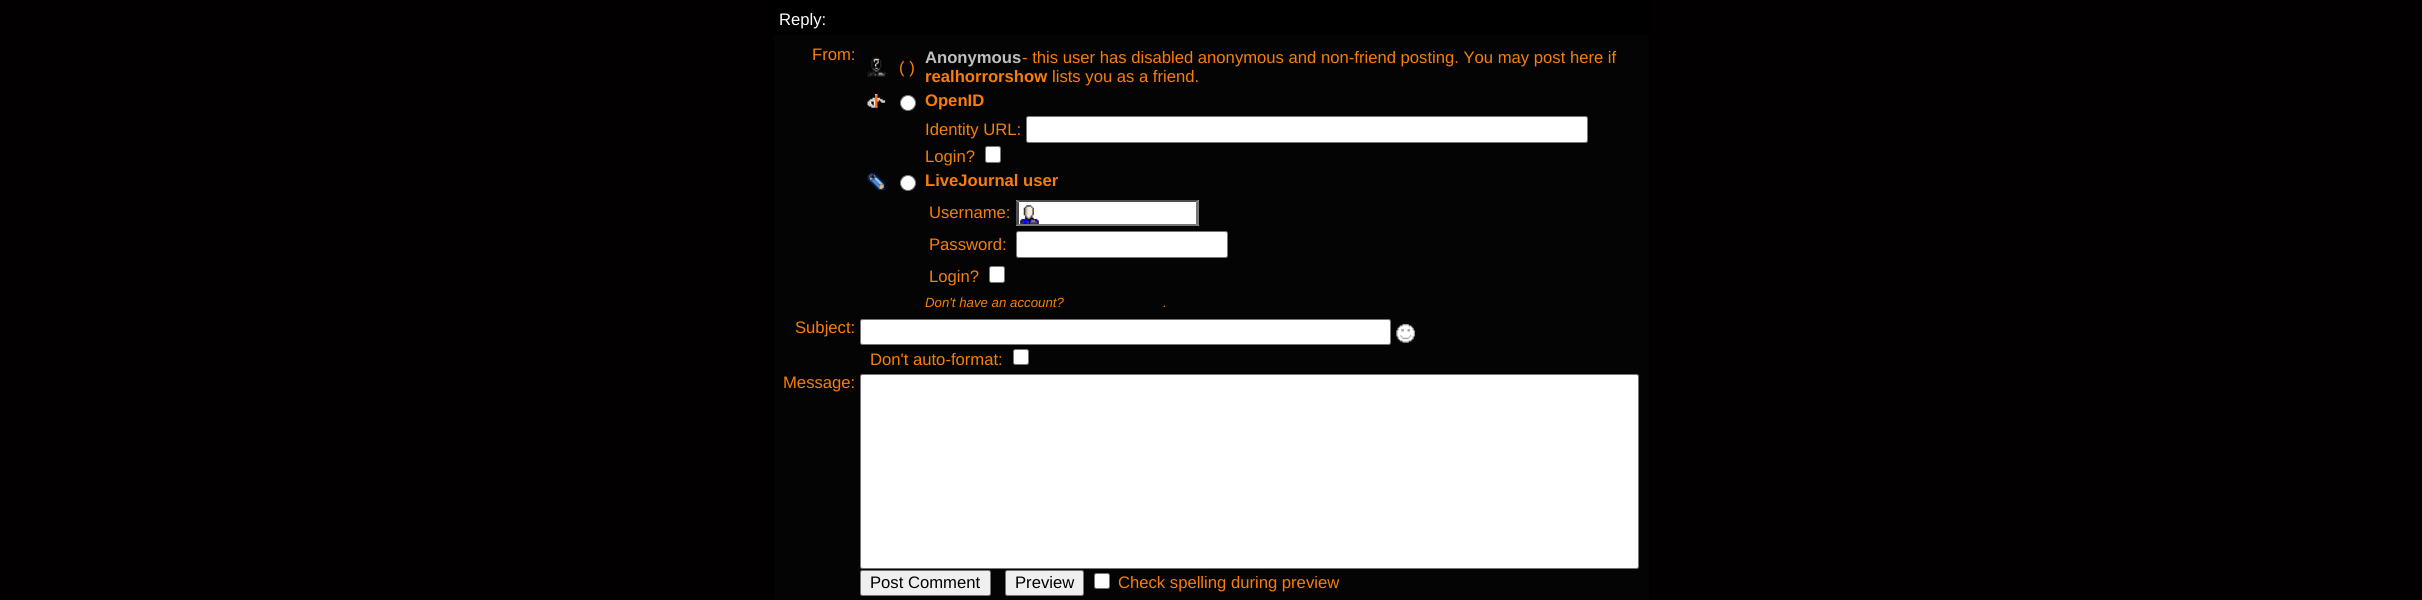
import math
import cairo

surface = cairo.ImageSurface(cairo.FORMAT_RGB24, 2422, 600)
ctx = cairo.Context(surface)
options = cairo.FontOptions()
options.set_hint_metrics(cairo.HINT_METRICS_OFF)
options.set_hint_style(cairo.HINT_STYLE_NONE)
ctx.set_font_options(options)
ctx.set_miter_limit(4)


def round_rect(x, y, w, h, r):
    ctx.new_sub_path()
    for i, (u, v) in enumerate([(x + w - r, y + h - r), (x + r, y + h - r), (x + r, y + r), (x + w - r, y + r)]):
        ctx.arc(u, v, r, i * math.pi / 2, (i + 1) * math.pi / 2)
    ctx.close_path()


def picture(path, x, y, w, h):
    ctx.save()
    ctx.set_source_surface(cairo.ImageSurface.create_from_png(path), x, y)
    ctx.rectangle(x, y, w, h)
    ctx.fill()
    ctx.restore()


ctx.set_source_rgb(0.012, 0, 0.008)
ctx.paint()
ctx.set_source_rgb(0, 0, 0)
ctx.rectangle(771, 1, 880, 599)
ctx.fill()
ctx.select_font_face("Liberation Sans")
ctx.set_font_size(16.65)
ctx.set_source_rgb(1, 1, 1)
ctx.move_to(779, 25)
ctx.show_text("Reply:")
ctx.set_source_rgb(0.016, 0.016, 0.016)
ctx.rectangle(774, 35, 875, 565)
ctx.fill()
ctx.set_source_rgb(0.969, 0.494, 0.031)
ctx.move_to(812, 60)
ctx.show_text("From:")
picture("img1.png", 867, 57, 20, 20)
ctx.move_to(899, 73)
ctx.show_text("( )")
ctx.select_font_face("Liberation Sans", cairo.FONT_SLANT_NORMAL, cairo.FONT_WEIGHT_BOLD)
ctx.set_source_rgb(0.753, 0.753, 0.753)
ctx.move_to(925, 63)
ctx.show_text("Anonymous")
ctx.select_font_face("Liberation Sans")
ctx.set_source_rgb(0.969, 0.494, 0.031)
ctx.move_to(1022, 63)
ctx.show_text("- this user has disabled anonymous and non-friend posting. You may post here if")
ctx.select_font_face("Liberation Sans", cairo.FONT_SLANT_NORMAL, cairo.FONT_WEIGHT_BOLD)
ctx.move_to(925, 82)
ctx.show_text("realhorrorshow")
ctx.select_font_face("Liberation Sans")
ctx.move_to(1052, 82)
ctx.show_text("lists you as a friend.")
picture("img2.png", 867, 93, 19, 15)
ctx.set_source_rgb(1, 1, 1)
ctx.arc(908, 103, 7.5, 0, 2 * math.pi)
ctx.fill_preserve()
ctx.set_source_rgb(0.463, 0.463, 0.463)
ctx.set_line_width(1)
ctx.stroke()
ctx.select_font_face("Liberation Sans", cairo.FONT_SLANT_NORMAL, cairo.FONT_WEIGHT_BOLD)
ctx.set_source_rgb(0.969, 0.494, 0.031)
ctx.move_to(925, 106)
ctx.show_text("OpenID")
ctx.select_font_face("Liberation Sans")
ctx.move_to(925, 135)
ctx.show_text("Identity URL:")
ctx.set_source_rgb(1, 1, 1)
round_rect(1026.5, 116.5, 561, 26, 2)
ctx.fill_preserve()
ctx.set_source_rgb(0.463, 0.463, 0.463)
ctx.stroke()
ctx.set_source_rgb(0.969, 0.494, 0.031)
ctx.move_to(925, 162)
ctx.show_text("Login?")
ctx.set_source_rgb(1, 1, 1)
round_rect(985.5, 146.5, 15, 16, 2)
ctx.fill_preserve()
ctx.set_source_rgb(0.463, 0.463, 0.463)
ctx.stroke()
picture("img3.png", 867, 172, 19, 19)
ctx.set_source_rgb(1, 1, 1)
ctx.arc(908, 183, 7.5, 0, 2 * math.pi)
ctx.fill_preserve()
ctx.set_source_rgb(0.463, 0.463, 0.463)
ctx.stroke()
ctx.select_font_face("Liberation Sans", cairo.FONT_SLANT_NORMAL, cairo.FONT_WEIGHT_BOLD)
ctx.set_source_rgb(0.969, 0.494, 0.031)
ctx.move_to(925, 186)
ctx.show_text("LiveJournal user")
ctx.select_font_face("Liberation Sans")
ctx.move_to(929, 218)
ctx.show_text("Username:")
ctx.set_source_rgb(1, 1, 1)
ctx.rectangle(1016, 200, 183, 26)
ctx.fill()
picture("img4.png", 1019, 205, 20, 19)
ctx.set_source_rgb(0.31, 0.31, 0.31)
ctx.new_path()
ctx.move_to(1016, 200)
ctx.line_to(1199, 200)
ctx.line_to(1196, 202)
ctx.line_to(1019, 202)
ctx.close_path()
ctx.fill()
ctx.set_source_rgb(0.463, 0.463, 0.463)
ctx.new_path()
ctx.move_to(1199, 200)
ctx.line_to(1199, 226)
ctx.line_to(1196, 224)
ctx.line_to(1196, 202.5)
ctx.close_path()
ctx.fill()
ctx.new_path()
ctx.move_to(1199, 226)
ctx.line_to(1016, 226)
ctx.line_to(1019, 224)
ctx.line_to(1196, 224)
ctx.close_path()
ctx.fill()
ctx.set_source_rgb(0.31, 0.31, 0.31)
ctx.new_path()
ctx.move_to(1016, 226)
ctx.line_to(1016, 200)
ctx.line_to(1019, 202.5)
ctx.line_to(1019, 224)
ctx.close_path()
ctx.fill()
ctx.set_source_rgb(0.969, 0.494, 0.031)
ctx.move_to(929, 250)
ctx.show_text("Password:")
ctx.set_source_rgb(1, 1, 1)
round_rect(1016.5, 231.5, 211, 26, 2)
ctx.fill_preserve()
ctx.set_source_rgb(0.463, 0.463, 0.463)
ctx.stroke()
ctx.set_source_rgb(0.969, 0.494, 0.031)
ctx.move_to(929, 282)
ctx.show_text("Login?")
ctx.set_source_rgb(1, 1, 1)
round_rect(989.5, 266.5, 15, 16, 2)
ctx.fill_preserve()
ctx.set_source_rgb(0.463, 0.463, 0.463)
ctx.stroke()
ctx.select_font_face("Liberation Sans", cairo.FONT_SLANT_ITALIC)
ctx.set_font_size(13.25)
ctx.set_source_rgb(0.969, 0.494, 0.031)
ctx.move_to(925, 307)
ctx.show_text("Don't have an account?")
ctx.move_to(1163, 307)
ctx.show_text(".")
ctx.select_font_face("Liberation Sans")
ctx.set_font_size(16.65)
ctx.move_to(795, 333)
ctx.show_text("Subject:")
ctx.set_source_rgb(1, 1, 1)
round_rect(860.5, 319.5, 530, 25, 2)
ctx.fill_preserve()
ctx.set_source_rgb(0.463, 0.463, 0.463)
ctx.stroke()
picture("img5.png", 1396, 324, 19, 19)
ctx.set_source_rgb(0.969, 0.494, 0.031)
ctx.move_to(870, 365)
ctx.show_text("Don't auto-format:")
ctx.set_source_rgb(1, 1, 1)
round_rect(1013.5, 349.5, 15, 15, 2)
ctx.fill_preserve()
ctx.set_source_rgb(0.463, 0.463, 0.463)
ctx.stroke()
ctx.set_source_rgb(0.969, 0.494, 0.031)
ctx.move_to(783, 388)
ctx.show_text("Message:")
ctx.set_source_rgb(1, 1, 1)
round_rect(860.5, 374.5, 778, 194, 2)
ctx.fill_preserve()
ctx.set_source_rgb(0.463, 0.463, 0.463)
ctx.stroke()
ctx.set_source_rgb(0.937, 0.937, 0.937)
round_rect(860.5, 570.5, 130, 25, 2)
ctx.fill_preserve()
ctx.set_source_rgb(0.463, 0.463, 0.463)
ctx.stroke()
ctx.set_source_rgb(0, 0, 0)
ctx.move_to(870, 588)
ctx.show_text("Post Comment")
ctx.set_source_rgb(0.937, 0.937, 0.937)
round_rect(1005.5, 570.5, 78, 25, 2)
ctx.fill_preserve()
ctx.set_source_rgb(0.463, 0.463, 0.463)
ctx.stroke()
ctx.set_source_rgb(0, 0, 0)
ctx.move_to(1015, 588)
ctx.show_text("Preview")
ctx.set_source_rgb(1, 1, 1)
round_rect(1094.5, 573.5, 15, 15, 2)
ctx.fill_preserve()
ctx.set_source_rgb(0.463, 0.463, 0.463)
ctx.stroke()
ctx.set_source_rgb(0.969, 0.494, 0.031)
ctx.move_to(1118, 588)
ctx.show_text("Check spelling during preview")
surface.write_to_png("page.png")
